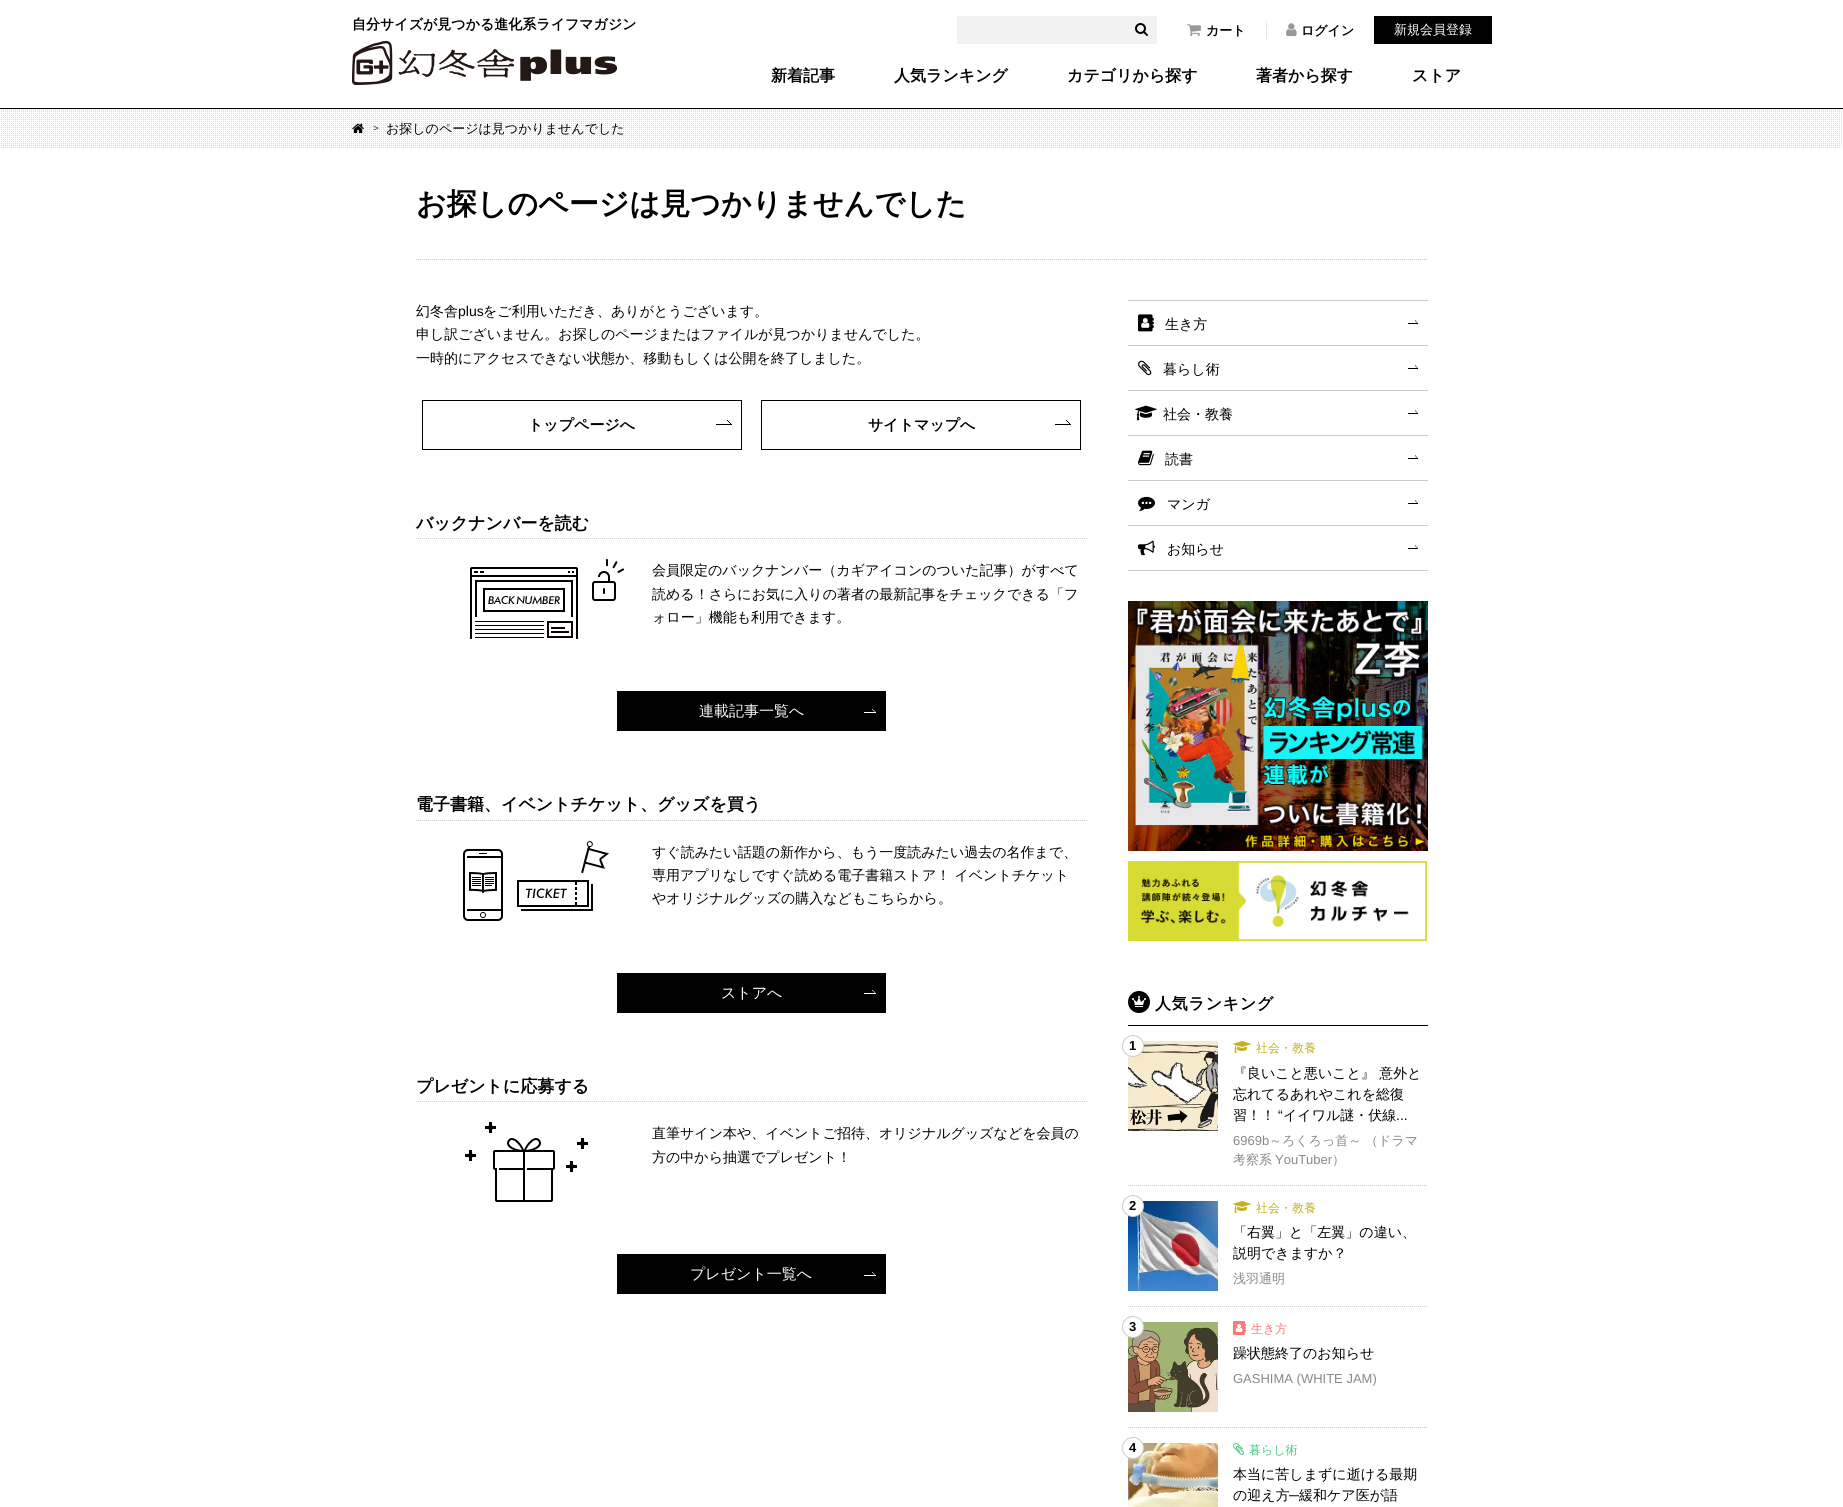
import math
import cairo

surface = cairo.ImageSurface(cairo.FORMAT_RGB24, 1843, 1507)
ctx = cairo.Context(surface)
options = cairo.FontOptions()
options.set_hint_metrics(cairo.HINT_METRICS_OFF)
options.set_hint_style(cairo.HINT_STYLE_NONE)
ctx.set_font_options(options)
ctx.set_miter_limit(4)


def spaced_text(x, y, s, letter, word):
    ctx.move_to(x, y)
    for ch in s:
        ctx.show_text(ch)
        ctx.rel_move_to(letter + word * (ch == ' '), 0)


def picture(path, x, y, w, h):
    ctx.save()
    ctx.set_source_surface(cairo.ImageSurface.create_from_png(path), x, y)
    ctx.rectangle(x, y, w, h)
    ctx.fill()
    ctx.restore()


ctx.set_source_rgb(1, 1, 1)
ctx.paint()
ctx.set_source_rgb(0, 0, 0)
ctx.rectangle(0, 108, 1843, 1)
ctx.fill()
ctx.select_font_face("WenQuanYi Zen Hei", cairo.FONT_SLANT_NORMAL, cairo.FONT_WEIGHT_BOLD)
ctx.set_font_size(14)
ctx.move_to(352, 29)
ctx.show_text("自分サイズが見つかる進化系ライフマガジン")
picture("img1.png", 352, 41, 265, 44)
ctx.set_source_rgb(0.949, 0.949, 0.949)
ctx.rectangle(957, 16, 200, 28)
ctx.fill()
picture("img2.png", 1135, 23, 13, 13)
ctx.new_path()
ctx.move_to(1266.5, 22)
ctx.line_to(1266.5, 39)
ctx.set_source_rgb(0.8, 0.8, 0.8)
ctx.set_line_width(1)
ctx.set_dash([1, 1])
ctx.stroke()
picture("img3.png", 1187, 24, 14, 12)
ctx.set_font_size(13)
ctx.set_source_rgb(0, 0, 0)
ctx.move_to(1206, 35)
ctx.show_text("カート")
picture("img4.png", 1286, 23, 11, 14)
ctx.move_to(1301, 35)
ctx.show_text("ログイン")
ctx.rectangle(1374, 16, 118, 28)
ctx.fill()
ctx.select_font_face("WenQuanYi Zen Hei Medium")
ctx.set_source_rgb(1, 1, 1)
ctx.move_to(1394, 34)
ctx.show_text("新規会員登録")
ctx.select_font_face("WenQuanYi Zen Hei", cairo.FONT_SLANT_NORMAL, cairo.FONT_WEIGHT_BOLD)
ctx.set_font_size(16)
ctx.set_source_rgb(0, 0, 0)
ctx.move_to(771, 81)
ctx.show_text("新着記事")
ctx.move_to(894, 81)
ctx.show_text("人気ランキング")
ctx.move_to(1067, 81)
ctx.show_text("カテゴリから探す")
ctx.move_to(1256, 81)
ctx.show_text("著者から探す")
ctx.move_to(1412, 81)
ctx.show_text("ストア")
picture("img5.png", 1, 109, 1841, 39)
picture("img6.png", 352, 123, 12, 10)
ctx.select_font_face("WenQuanYi Zen Hei Medium")
ctx.set_font_size(10)
ctx.move_to(371, 131)
ctx.show_text("＞")
ctx.set_font_size(13)
ctx.move_to(386, 133)
ctx.show_text("お探しのページは見つかりませんでした")
ctx.new_path()
ctx.move_to(416, 259.5)
ctx.line_to(1428, 259.5)
ctx.set_source_rgb(0.8, 0.8, 0.8)
ctx.stroke()
ctx.select_font_face("WenQuanYi Zen Hei", cairo.FONT_SLANT_NORMAL, cairo.FONT_WEIGHT_BOLD)
ctx.set_font_size(30)
ctx.set_source_rgb(0, 0, 0)
ctx.move_to(416, 214)
ctx.show_text("お探しのページは見つかりませんでした")
ctx.select_font_face("WenQuanYi Zen Hei Medium")
ctx.set_font_size(14)
ctx.move_to(416, 316)
ctx.show_text("幻冬舎")
ctx.select_font_face("Liberation Sans")
ctx.move_to(458, 316)
ctx.show_text("plus")
ctx.select_font_face("WenQuanYi Zen Hei Medium")
ctx.move_to(483, 316)
ctx.show_text("をご利用いただき、ありがとうございます。")
ctx.move_to(416, 339)
ctx.show_text("申し訳ございません。お探しのページまたはファイルが見つかりませんでした。")
ctx.move_to(416, 363)
ctx.show_text("一時的にアクセスできない状態か、移動もしくは公開を終了しました。")
ctx.rectangle(422.5, 400.5, 319, 49)
ctx.set_dash([])
ctx.stroke()
ctx.select_font_face("WenQuanYi Zen Hei", cairo.FONT_SLANT_NORMAL, cairo.FONT_WEIGHT_BOLD)
ctx.set_font_size(15)
ctx.move_to(528, 430)
ctx.show_text("トップページへ")
picture("img7.png", 716, 420, 16, 5)
ctx.rectangle(761.5, 400.5, 319, 49)
ctx.stroke()
ctx.move_to(868, 430)
ctx.show_text("サイトマップへ")
picture("img7.png", 1055, 420, 16, 5)
ctx.new_path()
ctx.move_to(416, 538.5)
ctx.line_to(1088, 538.5)
ctx.set_source_rgb(0.8, 0.8, 0.8)
ctx.set_dash([1, 1])
ctx.stroke()
ctx.set_font_size(17)
ctx.set_source_rgb(0, 0, 0)
ctx.move_to(416, 529)
ctx.show_text("バックナンバーを読む")
picture("img8.png", 470, 559, 154, 80)
ctx.select_font_face("WenQuanYi Zen Hei Medium")
ctx.set_font_size(14)
ctx.move_to(652, 575)
ctx.show_text("会員限定のバックナンバー（カギアイコンのついた記事）がすべて")
ctx.move_to(652, 599)
ctx.show_text("読める！さらにお気に入りの著者の最新記事をチェックできる「フ")
ctx.move_to(652, 622)
ctx.show_text("ォロー」機能も利用できます。")
ctx.rectangle(617, 691, 269, 40)
ctx.fill()
ctx.set_font_size(15)
ctx.set_source_rgb(1, 1, 1)
ctx.move_to(699, 716)
ctx.show_text("連載記事一覧へ")
picture("img9.png", 864, 709, 12, 4)
ctx.new_path()
ctx.move_to(416, 820.5)
ctx.line_to(1088, 820.5)
ctx.set_source_rgb(0.8, 0.8, 0.8)
ctx.stroke()
ctx.select_font_face("WenQuanYi Zen Hei", cairo.FONT_SLANT_NORMAL, cairo.FONT_WEIGHT_BOLD)
ctx.set_font_size(17)
ctx.set_source_rgb(0, 0, 0)
ctx.move_to(416, 810)
ctx.show_text("電子書籍、イベントチケット、グッズを買う")
picture("img10.png", 463, 841, 146, 80)
ctx.select_font_face("WenQuanYi Zen Hei Medium")
ctx.set_font_size(14)
ctx.move_to(652, 857)
ctx.show_text("すぐ読みたい話題の新作から、もう一度読みたい過去の名作まで、")
ctx.move_to(652, 880)
ctx.show_text("専用アプリなしですぐ読める電子書籍ストア！ イベントチケット")
ctx.move_to(652, 903)
ctx.show_text("やオリジナルグッズの購入などもこちらから。")
ctx.rectangle(617, 973, 269, 40)
ctx.fill()
ctx.set_font_size(15)
ctx.set_source_rgb(1, 1, 1)
ctx.move_to(721, 998)
ctx.show_text("ストアへ")
picture("img9.png", 864, 990, 12, 4)
ctx.new_path()
ctx.move_to(416, 1101.5)
ctx.line_to(1088, 1101.5)
ctx.set_source_rgb(0.8, 0.8, 0.8)
ctx.stroke()
ctx.select_font_face("WenQuanYi Zen Hei", cairo.FONT_SLANT_NORMAL, cairo.FONT_WEIGHT_BOLD)
ctx.set_font_size(17)
ctx.set_source_rgb(0, 0, 0)
ctx.move_to(416, 1092)
ctx.show_text("プレゼントに応募する")
picture("img11.png", 465, 1122, 123, 80)
ctx.select_font_face("WenQuanYi Zen Hei Medium")
ctx.set_font_size(14)
ctx.move_to(652, 1138)
ctx.show_text("直筆サイン本や、イベントご招待、オリジナルグッズなどを会員の")
ctx.move_to(652, 1162)
ctx.show_text("方の中から抽選でプレゼント！")
ctx.rectangle(617, 1254, 269, 40)
ctx.fill()
ctx.set_font_size(15)
ctx.set_source_rgb(1, 1, 1)
ctx.move_to(690, 1279)
ctx.show_text("プレゼント一覧へ")
picture("img9.png", 864, 1272, 12, 4)
ctx.set_source_rgb(0.8, 0.8, 0.8)
ctx.rectangle(1128, 300, 300, 1)
ctx.fill()
ctx.rectangle(1128, 345, 300, 1)
ctx.fill()
picture("img12.png", 1138, 314, 16, 18)
ctx.set_font_size(14)
ctx.set_source_rgb(0, 0, 0)
ctx.move_to(1165, 329)
ctx.show_text("生き方")
picture("img13.png", 1408, 320, 10, 4)
ctx.set_source_rgb(0.8, 0.8, 0.8)
ctx.rectangle(1128, 390, 300, 1)
ctx.fill()
picture("img14.png", 1138, 360, 14, 16)
ctx.set_source_rgb(0, 0, 0)
ctx.move_to(1163, 374)
ctx.show_text("暮らし術")
picture("img13.png", 1408, 365, 10, 4)
ctx.set_source_rgb(0.8, 0.8, 0.8)
ctx.rectangle(1128, 435, 300, 1)
ctx.fill()
picture("img15.png", 1135, 405, 22, 16)
ctx.set_source_rgb(0, 0, 0)
ctx.move_to(1163, 419)
ctx.show_text("社会・教養")
picture("img13.png", 1408, 410, 10, 4)
ctx.set_source_rgb(0.8, 0.8, 0.8)
ctx.rectangle(1128, 480, 300, 1)
ctx.fill()
picture("img16.png", 1138, 450, 16, 16)
ctx.set_source_rgb(0, 0, 0)
ctx.move_to(1165, 464)
ctx.show_text("読書")
picture("img13.png", 1408, 455, 10, 4)
ctx.set_source_rgb(0.8, 0.8, 0.8)
ctx.rectangle(1128, 525, 300, 1)
ctx.fill()
picture("img17.png", 1138, 496, 17, 16)
ctx.set_source_rgb(0, 0, 0)
ctx.move_to(1167, 509)
ctx.show_text("マンガ")
picture("img13.png", 1408, 500, 10, 4)
ctx.set_source_rgb(0.8, 0.8, 0.8)
ctx.rectangle(1128, 570, 300, 1)
ctx.fill()
picture("img18.png", 1138, 540, 17, 16)
ctx.set_source_rgb(0, 0, 0)
ctx.move_to(1167, 554)
ctx.show_text("お知らせ")
picture("img13.png", 1408, 545, 10, 4)
picture("img19.png", 1128, 601, 300, 250)
picture("img20.png", 1128, 861, 299, 80)
ctx.rectangle(1128, 1025, 300, 1)
ctx.fill()
picture("img21.png", 1128, 991, 22, 22)
ctx.select_font_face("WenQuanYi Zen Hei", cairo.FONT_SLANT_NORMAL, cairo.FONT_WEIGHT_BOLD)
ctx.set_font_size(16)
spaced_text(1155, 1009, "人気ランキング", 0.75, 0)
ctx.new_path()
ctx.move_to(1128, 1185.5)
ctx.line_to(1428, 1185.5)
ctx.set_source_rgb(0.8, 0.8, 0.8)
ctx.stroke()
picture("img22.png", 1128, 1041, 90, 90)
ctx.set_source_rgb(1, 1, 1)
ctx.arc(1133, 1046, 10.5, 0, 2 * math.pi)
ctx.fill_preserve()
ctx.set_source_rgb(0.8, 0.8, 0.8)
ctx.set_dash([])
ctx.stroke()
ctx.select_font_face("Liberation Sans", cairo.FONT_SLANT_NORMAL, cairo.FONT_WEIGHT_BOLD)
ctx.set_font_size(13)
ctx.set_source_rgb(0, 0, 0)
ctx.move_to(1129, 1050)
ctx.show_text("1")
picture("img23.png", 1233, 1041, 18, 12)
ctx.select_font_face("WenQuanYi Zen Hei Medium")
ctx.set_font_size(12)
ctx.set_source_rgb(0.765, 0.698, 0.145)
ctx.move_to(1256, 1052)
ctx.show_text("社会・教養")
ctx.set_font_size(14)
ctx.set_source_rgb(0, 0, 0)
ctx.move_to(1233, 1078)
ctx.show_text("『良いこと悪いこと』 意外と")
ctx.move_to(1233, 1099)
ctx.show_text("忘れてるあれやこれを総復")
ctx.move_to(1233, 1120)
ctx.show_text("習！！")
ctx.select_font_face("Liberation Sans")
ctx.move_to(1278, 1120)
ctx.show_text("“")
ctx.select_font_face("WenQuanYi Zen Hei Medium")
ctx.move_to(1283, 1120)
ctx.show_text("イイワル謎・伏線")
ctx.select_font_face("Liberation Sans")
ctx.move_to(1396, 1120)
ctx.show_text("...")
ctx.set_font_size(13)
ctx.set_source_rgb(0.533, 0.533, 0.533)
ctx.move_to(1233, 1145)
ctx.show_text("6969b")
ctx.select_font_face("WenQuanYi Zen Hei Medium")
ctx.move_to(1269, 1145)
ctx.show_text("～ろくろっ首～ （ドラマ")
ctx.move_to(1233, 1164)
ctx.show_text("考察系")
ctx.select_font_face("Liberation Sans")
ctx.move_to(1275, 1164)
ctx.show_text("YouTuber")
ctx.select_font_face("WenQuanYi Zen Hei Medium")
ctx.move_to(1332, 1164)
ctx.show_text("）")
ctx.new_path()
ctx.move_to(1128, 1306.5)
ctx.line_to(1428, 1306.5)
ctx.set_source_rgb(0.8, 0.8, 0.8)
ctx.set_dash([1, 1])
ctx.stroke()
picture("img24.png", 1128, 1201, 90, 90)
ctx.set_source_rgb(1, 1, 1)
ctx.arc(1133, 1206, 10.5, 0, 2 * math.pi)
ctx.fill_preserve()
ctx.set_source_rgb(0.8, 0.8, 0.8)
ctx.set_dash([])
ctx.stroke()
ctx.select_font_face("Liberation Sans", cairo.FONT_SLANT_NORMAL, cairo.FONT_WEIGHT_BOLD)
ctx.set_source_rgb(0, 0, 0)
ctx.move_to(1129, 1210)
ctx.show_text("2")
picture("img23.png", 1233, 1201, 18, 12)
ctx.select_font_face("WenQuanYi Zen Hei Medium")
ctx.set_font_size(12)
ctx.set_source_rgb(0.765, 0.698, 0.145)
ctx.move_to(1256, 1212)
ctx.show_text("社会・教養")
ctx.set_font_size(14)
ctx.set_source_rgb(0, 0, 0)
ctx.move_to(1233, 1237)
ctx.show_text("「右翼」と「左翼」の違い、")
ctx.move_to(1233, 1258)
ctx.show_text("説明できますか？")
ctx.set_font_size(13)
ctx.set_source_rgb(0.533, 0.533, 0.533)
ctx.move_to(1233, 1283)
ctx.show_text("浅羽通明")
ctx.new_path()
ctx.move_to(1128, 1427.5)
ctx.line_to(1428, 1427.5)
ctx.set_source_rgb(0.8, 0.8, 0.8)
ctx.set_dash([1, 1])
ctx.stroke()
picture("img25.png", 1128, 1322, 90, 90)
ctx.set_source_rgb(1, 1, 1)
ctx.arc(1133, 1327, 10.5, 0, 2 * math.pi)
ctx.fill_preserve()
ctx.set_source_rgb(0.8, 0.8, 0.8)
ctx.set_dash([])
ctx.stroke()
ctx.select_font_face("Liberation Sans", cairo.FONT_SLANT_NORMAL, cairo.FONT_WEIGHT_BOLD)
ctx.set_source_rgb(0, 0, 0)
ctx.move_to(1129, 1331)
ctx.show_text("3")
picture("img26.png", 1233, 1321, 13, 14)
ctx.select_font_face("WenQuanYi Zen Hei Medium")
ctx.set_font_size(12)
ctx.set_source_rgb(0.973, 0.478, 0.478)
ctx.move_to(1251, 1333)
ctx.show_text("生き方")
ctx.set_font_size(14)
ctx.set_source_rgb(0, 0, 0)
ctx.move_to(1233, 1358)
ctx.show_text("躁状態終了のお知らせ")
ctx.select_font_face("Liberation Sans")
ctx.set_font_size(13)
ctx.set_source_rgb(0.533, 0.533, 0.533)
ctx.move_to(1233, 1383)
ctx.show_text("GASHIMA (WHITE JAM)")
picture("img27.png", 1128, 1443, 90, 64)
ctx.set_source_rgb(1, 1, 1)
ctx.arc(1133, 1448, 10.5, 0, 2 * math.pi)
ctx.fill_preserve()
ctx.set_source_rgb(0.8, 0.8, 0.8)
ctx.stroke()
ctx.select_font_face("Liberation Sans", cairo.FONT_SLANT_NORMAL, cairo.FONT_WEIGHT_BOLD)
ctx.set_source_rgb(0, 0, 0)
ctx.move_to(1129, 1452)
ctx.show_text("4")
picture("img28.png", 1233, 1443, 11, 12)
ctx.select_font_face("WenQuanYi Zen Hei Medium")
ctx.set_font_size(12)
ctx.set_source_rgb(0.259, 0.788, 0.51)
ctx.move_to(1249, 1454)
ctx.show_text("暮らし術")
ctx.set_font_size(14)
ctx.set_source_rgb(0, 0, 0)
ctx.move_to(1233, 1479)
ctx.show_text("本当に苦しまずに逝ける最期")
ctx.move_to(1233, 1500)
ctx.show_text("の迎え方")
ctx.select_font_face("Liberation Sans")
ctx.move_to(1289, 1500)
ctx.show_text("─")
ctx.select_font_face("WenQuanYi Zen Hei Medium")
ctx.move_to(1299, 1500)
ctx.show_text("緩和ケア医が語")
surface.write_to_png("page.png")
